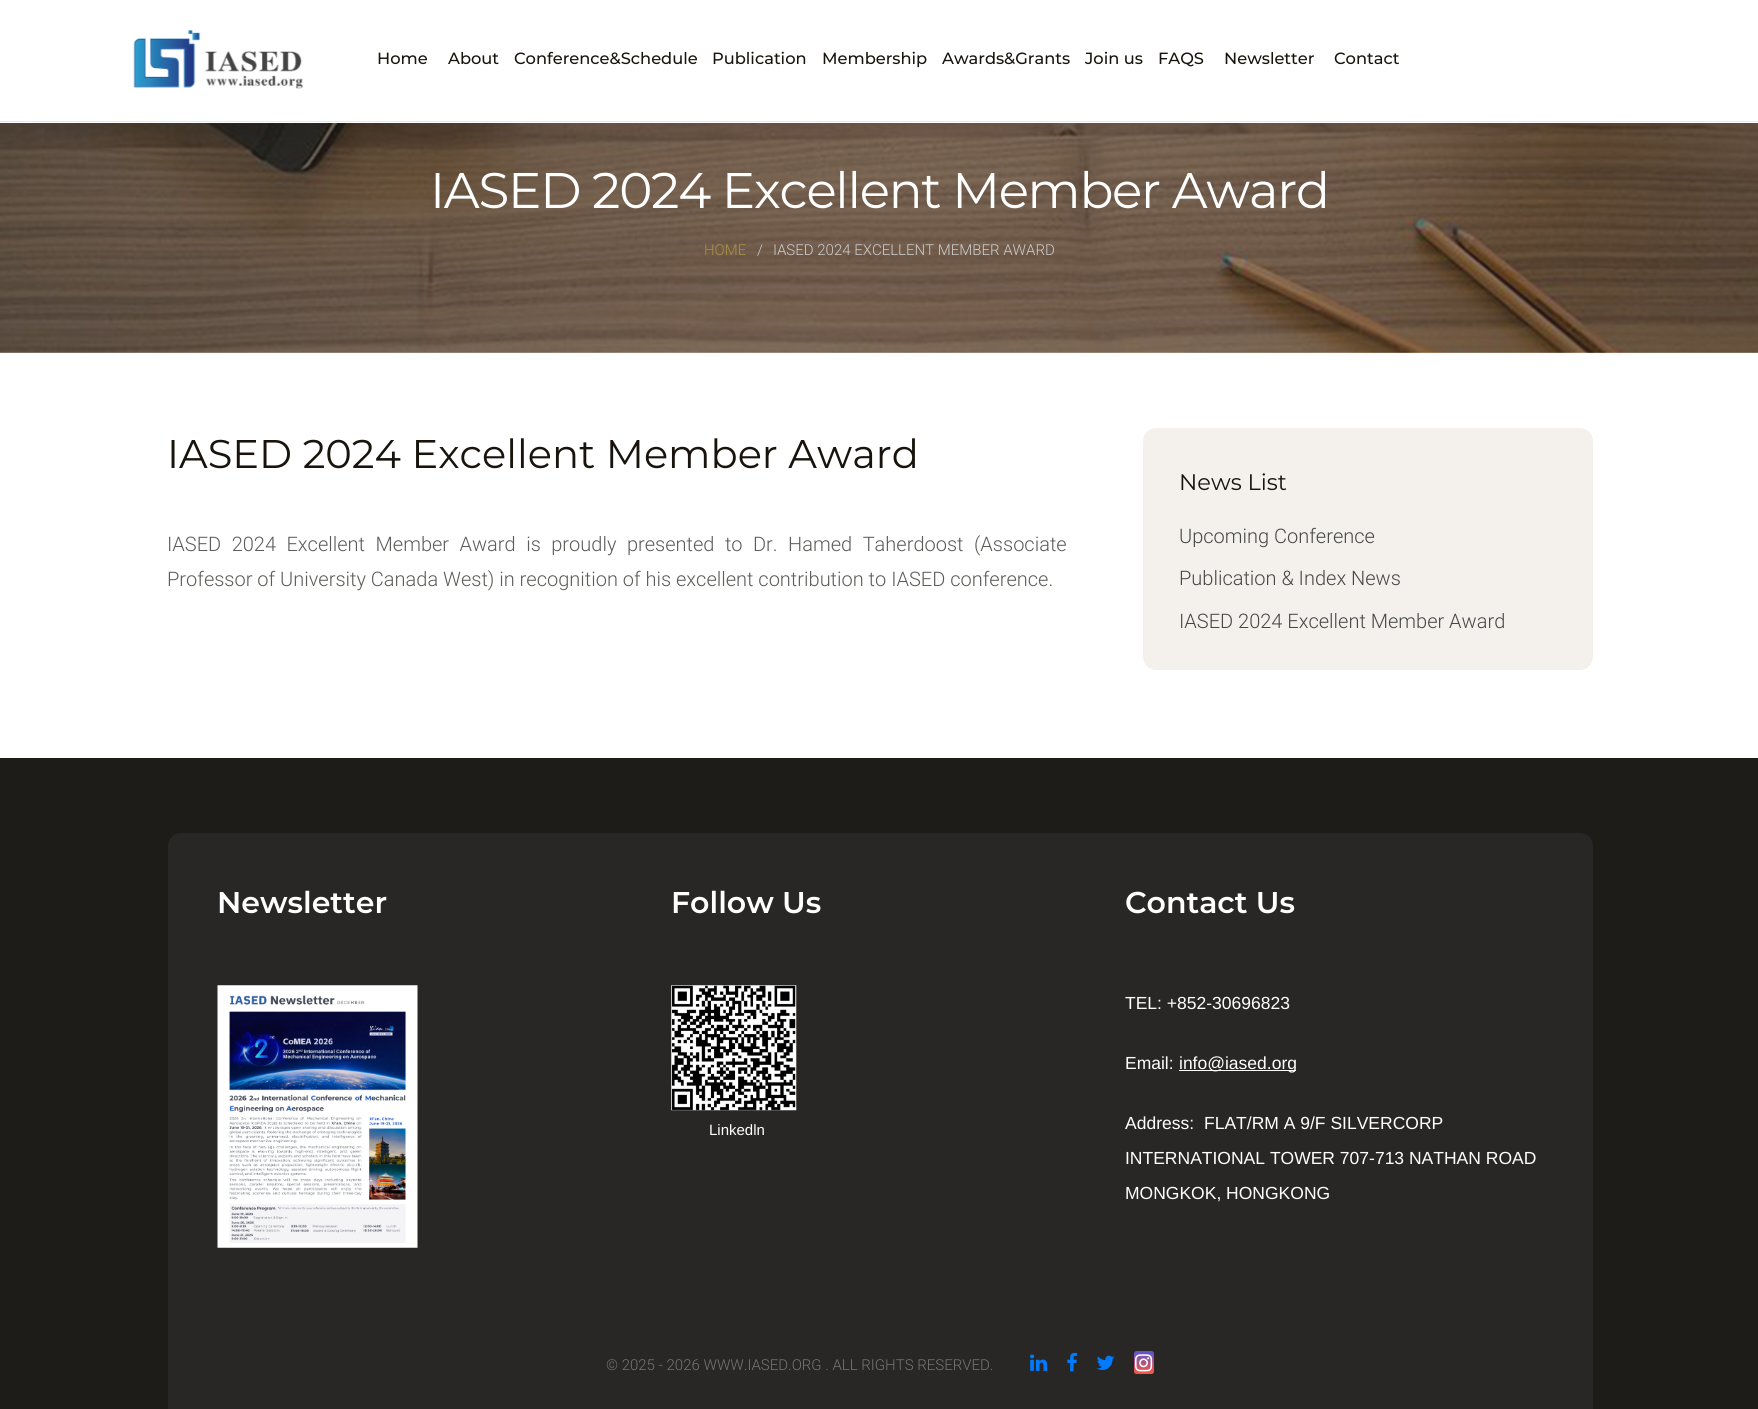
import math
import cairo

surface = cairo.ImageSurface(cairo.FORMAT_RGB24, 1758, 1409)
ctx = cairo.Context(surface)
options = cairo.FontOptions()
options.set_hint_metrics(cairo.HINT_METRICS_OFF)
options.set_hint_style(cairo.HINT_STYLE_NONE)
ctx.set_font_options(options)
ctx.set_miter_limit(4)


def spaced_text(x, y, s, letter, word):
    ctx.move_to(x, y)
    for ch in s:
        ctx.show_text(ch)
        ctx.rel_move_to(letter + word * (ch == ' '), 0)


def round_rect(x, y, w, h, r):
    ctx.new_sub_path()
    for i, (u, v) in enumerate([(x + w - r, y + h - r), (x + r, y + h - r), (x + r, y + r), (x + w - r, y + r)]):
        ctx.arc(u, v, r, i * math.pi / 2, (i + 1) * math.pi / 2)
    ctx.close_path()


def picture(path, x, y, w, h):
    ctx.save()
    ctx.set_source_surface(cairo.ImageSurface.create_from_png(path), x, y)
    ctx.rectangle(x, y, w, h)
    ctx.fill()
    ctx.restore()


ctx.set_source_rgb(1, 1, 1)
ctx.paint()
ctx.set_source_rgb(0.918, 0.906, 0.886)
ctx.rectangle(0, 121, 1758, 1)
ctx.fill()
picture("img1.png", 133, 30, 171, 59)
ctx.select_font_face("Montserrat Medium")
ctx.set_font_size(16.25)
ctx.set_source_rgb(0.094, 0.082, 0.051)
ctx.move_to(377, 64)
ctx.show_text("Home")
ctx.move_to(448, 64)
ctx.show_text("About")
ctx.move_to(514, 64)
ctx.show_text("Conference&Schedule")
ctx.move_to(712, 64)
ctx.show_text("Publication")
ctx.move_to(822, 64)
ctx.show_text("Membership")
ctx.move_to(942, 64)
ctx.show_text("Awards&Grants")
ctx.move_to(1085, 64)
ctx.show_text("Join us")
ctx.move_to(1158, 64)
ctx.show_text("FAQS")
ctx.move_to(1224, 64)
ctx.show_text("Newsletter")
ctx.move_to(1334, 64)
ctx.show_text("Contact")
picture("img2.png", 0, 123, 1758, 230)
ctx.select_font_face("Montserrat")
ctx.set_font_size(50)
ctx.set_source_rgb(1, 1, 1)
spaced_text(430, 208, "IASED 2024 Excellent Member Award", -1.25, 0)
ctx.select_font_face("Roboto Light")
ctx.set_font_size(15)
ctx.set_source_rgb(0.667, 0.569, 0.267)
ctx.move_to(704, 255)
ctx.show_text("HOME")
ctx.set_source_rgb(0.8, 0.8, 0.8)
ctx.move_to(757, 255)
ctx.show_text("/")
ctx.move_to(773, 255)
ctx.show_text("IASED 2024 EXCELLENT MEMBER AWARD")
ctx.select_font_face("Montserrat")
ctx.set_font_size(40)
ctx.set_source_rgb(0.094, 0.082, 0.051)
ctx.move_to(167, 468)
ctx.show_text("IASED 2024 Excellent Member Award")
ctx.select_font_face("Roboto Light")
ctx.set_font_size(20)
ctx.set_source_rgb(0.365, 0.361, 0.349)
spaced_text(167, 551, "IASED 2024 Excellent Member Award is proudly presented to Dr. Hamed Taherdoost (Associate", 0, 5.6)
ctx.move_to(167, 586)
ctx.show_text("Professor of University Canada West) in recognition of his excellent contribution to IASED conference.")
ctx.set_source_rgb(0.957, 0.945, 0.925)
round_rect(1143, 428, 450, 242, 13)
ctx.fill()
ctx.select_font_face("Montserrat")
ctx.set_font_size(22.5)
ctx.set_source_rgb(0.094, 0.082, 0.051)
ctx.move_to(1179, 490)
ctx.show_text("News List")
ctx.select_font_face("Roboto Light")
ctx.set_font_size(20)
ctx.set_source_rgb(0.278, 0.278, 0.278)
ctx.move_to(1179, 543)
ctx.show_text("Upcoming Conference")
ctx.move_to(1179, 585)
ctx.show_text("Publication & Index News")
ctx.move_to(1179, 628)
ctx.show_text("IASED 2024 Excellent Member Award")
ctx.set_source_rgb(0.118, 0.11, 0.094)
ctx.rectangle(0, 758, 1758, 651)
ctx.fill()
ctx.set_source_rgb(0.157, 0.153, 0.145)
round_rect(168, 833, 1425, 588, 13)
ctx.fill()
ctx.select_font_face("Montserrat SemiBold")
ctx.set_font_size(30)
ctx.set_source_rgb(1, 1, 1)
ctx.move_to(217, 913)
ctx.show_text("Newsletter")
picture("img3.png", 217, 985, 201, 263)
ctx.move_to(671, 913)
ctx.show_text("Follow Us")
picture("img4.png", 671, 985, 126, 126)
ctx.select_font_face("Liberation Sans")
ctx.set_font_size(15)
ctx.move_to(709, 1135)
ctx.show_text("Linkedln")
ctx.select_font_face("Montserrat SemiBold")
ctx.set_font_size(30)
ctx.move_to(1125, 913)
ctx.show_text("Contact Us")
ctx.select_font_face("Liberation Sans")
ctx.set_font_size(17.5)
ctx.move_to(1125, 1009)
ctx.show_text("TEL: +852-30696823")
ctx.move_to(1125, 1069)
ctx.show_text("Email:")
ctx.rectangle(1179, 1070, 117, 1)
ctx.fill()
ctx.move_to(1179, 1069)
ctx.show_text("info@iased.org")
ctx.move_to(1125, 1129)
ctx.show_text("Address:")
ctx.move_to(1204, 1129)
ctx.show_text("FLAT/RM A 9/F SILVERCORP")
ctx.move_to(1125, 1164)
ctx.show_text("INTERNATIONAL TOWER 707-713 NATHAN ROAD")
ctx.move_to(1125, 1199)
ctx.show_text("MONGKOK, HONGKONG")
ctx.select_font_face("Roboto Light")
ctx.set_font_size(15)
ctx.set_source_rgb(0.455, 0.455, 0.455)
ctx.move_to(606, 1370)
ctx.show_text("© 2025 - 2026 WWW.IASED.ORG . ALL RIGHTS RESERVED.")
picture("img5.png", 1030, 1354, 18, 17)
picture("img6.png", 1067, 1352, 10, 20)
picture("img7.png", 1097, 1355, 18, 15)
gradient = cairo.LinearGradient(1144, 1351, 1144, 1374)
gradient.add_color_stop_rgba(0, 0.341, 0.337, 0.804, 1)
gradient.add_color_stop_rgba(1, 1, 0.333, 0.243, 1)
ctx.set_source(gradient)
round_rect(1134, 1351, 20, 23, 2.5)
ctx.fill()
picture("img8.png", 1135, 1354, 18, 18)
surface.write_to_png("page.png")
